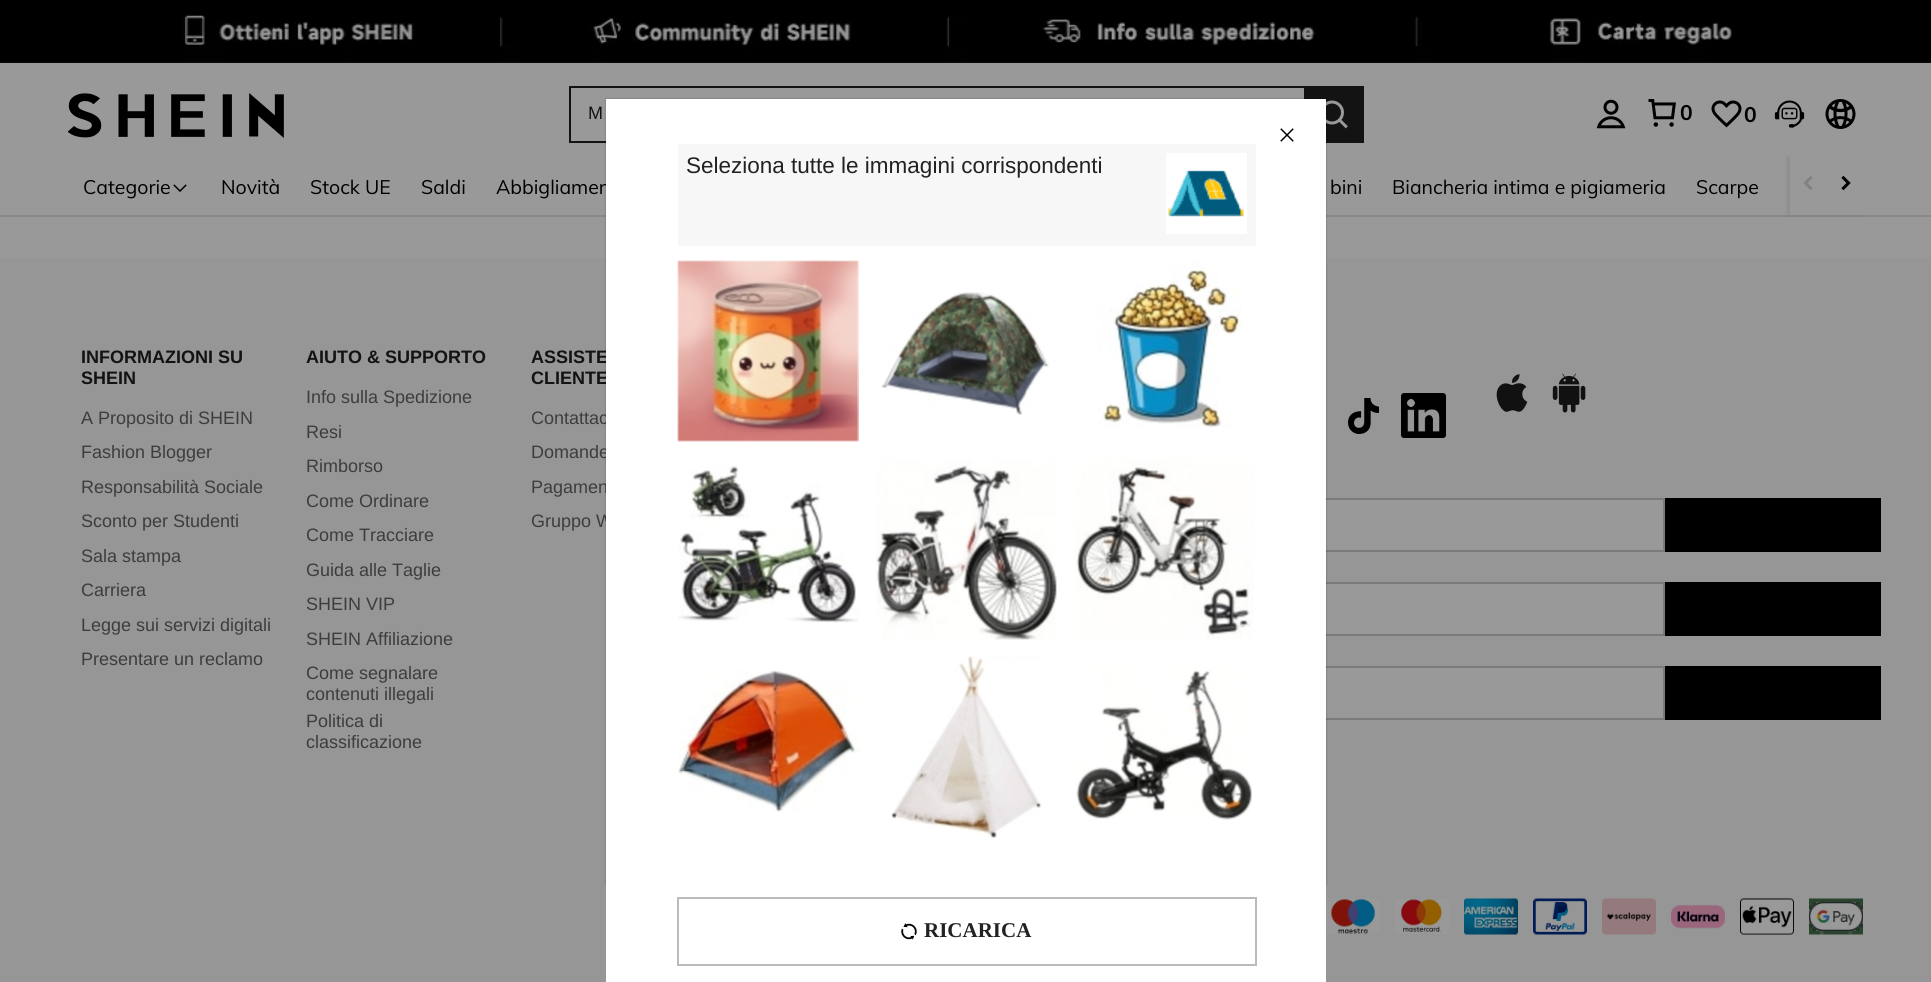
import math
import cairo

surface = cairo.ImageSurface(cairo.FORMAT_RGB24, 1931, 982)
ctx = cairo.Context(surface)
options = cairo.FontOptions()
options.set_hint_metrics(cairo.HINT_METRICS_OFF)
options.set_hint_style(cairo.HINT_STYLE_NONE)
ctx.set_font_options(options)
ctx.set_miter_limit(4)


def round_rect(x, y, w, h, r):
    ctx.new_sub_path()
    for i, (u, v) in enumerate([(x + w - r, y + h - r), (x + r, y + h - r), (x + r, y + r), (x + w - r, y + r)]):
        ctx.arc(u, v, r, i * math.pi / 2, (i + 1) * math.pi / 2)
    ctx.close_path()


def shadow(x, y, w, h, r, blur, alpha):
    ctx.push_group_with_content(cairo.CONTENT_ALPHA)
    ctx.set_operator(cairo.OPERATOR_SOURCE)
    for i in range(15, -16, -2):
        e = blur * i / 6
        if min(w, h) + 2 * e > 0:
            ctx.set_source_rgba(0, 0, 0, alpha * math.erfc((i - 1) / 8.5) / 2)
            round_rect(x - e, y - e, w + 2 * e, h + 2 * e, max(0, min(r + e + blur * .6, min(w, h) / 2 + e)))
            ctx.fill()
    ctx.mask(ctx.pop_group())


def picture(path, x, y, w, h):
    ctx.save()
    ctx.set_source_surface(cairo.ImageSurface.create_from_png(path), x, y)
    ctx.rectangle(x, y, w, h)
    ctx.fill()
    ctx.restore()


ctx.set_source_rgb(0.6, 0.6, 0.6)
ctx.paint()
picture("img1.png", 0, 0, 1931, 63)
ctx.set_source_rgb(0.537, 0.537, 0.537)
ctx.rectangle(0, 215, 1931, 2)
ctx.fill()
ctx.set_source_rgb(0, 0, 0)
shadow(1787, 156, 75, 59, 0, 2, 0.08)
ctx.set_source_rgb(0.6, 0.6, 0.6)
ctx.rectangle(1787, 154, 75, 2)
ctx.fill()
picture("img2.png", 68, 93, 216, 45)
ctx.set_source_rgb(0.078, 0.078, 0.078)
ctx.rectangle(569, 86, 735, 2)
ctx.fill()
ctx.rectangle(569, 141, 37, 2)
ctx.fill()
ctx.rectangle(569, 86, 2, 57)
ctx.fill()
ctx.select_font_face("Liberation Sans")
ctx.set_font_size(18)
ctx.move_to(588, 119)
ctx.show_text("M")
ctx.rectangle(1304, 86, 60, 57)
ctx.fill()
picture("img3.png", 1326, 100, 22, 29)
picture("img4.png", 1596, 99, 30, 30)
picture("img5.png", 1648, 99, 28, 28)
ctx.select_font_face("Muli", cairo.FONT_SLANT_NORMAL, cairo.FONT_WEIGHT_BOLD)
ctx.set_font_size(21)
ctx.set_source_rgb(0, 0, 0)
ctx.move_to(1680, 120)
ctx.show_text("0")
picture("img6.png", 1711, 100, 31, 28)
ctx.move_to(1744, 122)
ctx.show_text("0")
picture("img7.png", 1774, 100, 31, 28)
picture("img8.png", 1825, 99, 31, 30)
ctx.select_font_face("Muli")
ctx.set_font_size(19.5)
ctx.move_to(83, 194)
ctx.show_text("Categorie")
picture("img9.png", 173, 184, 14, 8)
ctx.move_to(221, 194)
ctx.show_text("Novità")
ctx.move_to(310, 194)
ctx.show_text("Stock UE")
ctx.move_to(421, 194)
ctx.show_text("Saldi")
ctx.move_to(496, 194)
ctx.show_text("Abbigliamen")
ctx.move_to(1330, 194)
ctx.show_text("bini")
ctx.move_to(1392, 194)
ctx.show_text("Biancheria intima e pigiameria")
ctx.move_to(1696, 194)
ctx.show_text("Scarpe")
ctx.set_source_rgb(0.6, 0.6, 0.6)
ctx.rectangle(1790, 156, 74, 59)
ctx.fill()
picture("img10.png", 1803, 176, 10, 14)
picture("img11.png", 1841, 175, 10, 16)
ctx.set_source_rgb(0.588, 0.588, 0.588)
ctx.rectangle(0, 258, 1931, 724)
ctx.fill()
ctx.select_font_face("Liberation Sans", cairo.FONT_SLANT_NORMAL, cairo.FONT_WEIGHT_BOLD)
ctx.set_font_size(18)
ctx.set_source_rgb(0.078, 0.078, 0.078)
ctx.move_to(81, 363)
ctx.show_text("INFORMAZIONI SU")
ctx.move_to(81, 384)
ctx.show_text("SHEIN")
ctx.select_font_face("Liberation Sans")
ctx.set_source_rgb(0.239, 0.239, 0.239)
ctx.move_to(81, 424)
ctx.show_text("A Proposito di SHEIN")
ctx.move_to(81, 458)
ctx.show_text("Fashion Blogger")
ctx.move_to(81, 493)
ctx.show_text("Responsabilità Sociale")
ctx.move_to(81, 527)
ctx.show_text("Sconto per Studenti")
ctx.move_to(81, 562)
ctx.show_text("Sala stampa")
ctx.move_to(81, 596)
ctx.show_text("Carriera")
ctx.move_to(81, 631)
ctx.show_text("Legge sui servizi digitali")
ctx.move_to(81, 665)
ctx.show_text("Presentare un reclamo")
ctx.select_font_face("Liberation Sans", cairo.FONT_SLANT_NORMAL, cairo.FONT_WEIGHT_BOLD)
ctx.set_source_rgb(0.078, 0.078, 0.078)
ctx.move_to(306, 363)
ctx.show_text("AIUTO & SUPPORTO")
ctx.select_font_face("Liberation Sans")
ctx.set_source_rgb(0.239, 0.239, 0.239)
ctx.move_to(306, 403)
ctx.show_text("Info sulla Spedizione")
ctx.move_to(306, 438)
ctx.show_text("Resi")
ctx.move_to(306, 472)
ctx.show_text("Rimborso")
ctx.move_to(306, 507)
ctx.show_text("Come Ordinare")
ctx.move_to(306, 541)
ctx.show_text("Come Tracciare")
ctx.move_to(306, 576)
ctx.show_text("Guida alle Taglie")
ctx.move_to(306, 610)
ctx.show_text("SHEIN VIP")
ctx.move_to(306, 645)
ctx.show_text("SHEIN Affiliazione")
ctx.move_to(306, 679)
ctx.show_text("Come segnalare")
ctx.move_to(306, 700)
ctx.show_text("contenuti illegali")
ctx.move_to(306, 727)
ctx.show_text("Politica di")
ctx.move_to(306, 748)
ctx.show_text("classificazione")
ctx.select_font_face("Liberation Sans", cairo.FONT_SLANT_NORMAL, cairo.FONT_WEIGHT_BOLD)
ctx.set_source_rgb(0.078, 0.078, 0.078)
ctx.move_to(531, 363)
ctx.show_text("ASSISTE")
ctx.move_to(531, 384)
ctx.show_text("CLIENTE")
ctx.select_font_face("Liberation Sans")
ctx.set_source_rgb(0.239, 0.239, 0.239)
ctx.move_to(531, 424)
ctx.show_text("Contattac")
ctx.move_to(531, 458)
ctx.show_text("Domande")
ctx.move_to(531, 493)
ctx.show_text("Pagamen")
ctx.move_to(531, 527)
ctx.show_text("Gruppo W")
picture("img12.png", 1348, 398, 31, 36)
picture("img13.png", 1401, 393, 45, 45)
picture("img14.png", 1496, 374, 32, 38)
picture("img15.png", 1552, 373, 34, 40)
ctx.set_source_rgb(0.6, 0.6, 0.6)
ctx.rectangle(1326, 500, 337, 50)
ctx.fill()
ctx.rectangle(982, 499, 682, 52)
ctx.set_source_rgb(0.478, 0.478, 0.478)
ctx.stroke()
ctx.set_source_rgb(0, 0, 0)
ctx.rectangle(1665, 498, 216, 54)
ctx.fill()
ctx.set_source_rgb(0.6, 0.6, 0.6)
ctx.rectangle(1326, 584, 337, 50)
ctx.fill()
ctx.rectangle(1102, 583, 562, 52)
ctx.set_source_rgb(0.478, 0.478, 0.478)
ctx.stroke()
ctx.set_source_rgb(0, 0, 0)
ctx.rectangle(1665, 582, 216, 54)
ctx.fill()
ctx.set_source_rgb(0.6, 0.6, 0.6)
ctx.rectangle(1326, 668, 337, 50)
ctx.fill()
ctx.rectangle(1102, 667, 562, 52)
ctx.set_source_rgb(0.478, 0.478, 0.478)
ctx.stroke()
ctx.set_source_rgb(0, 0, 0)
ctx.rectangle(1665, 666, 216, 54)
ctx.fill()
picture("img16.png", 1326, 898, 54, 36)
picture("img17.png", 1395, 898, 54, 36)
picture("img18.png", 1464, 898, 54, 37)
picture("img19.png", 1533, 898, 54, 37)
picture("img20.png", 1602, 898, 54, 37)
picture("img21.png", 1671, 904, 54, 25)
picture("img22.png", 1740, 898, 54, 37)
picture("img23.png", 1809, 898, 54, 37)
ctx.set_source_rgb(0, 0, 0)
shadow(606, 99, 720, 786, 0, 1, 0.3)
ctx.set_source_rgb(1, 1, 1)
ctx.rectangle(606, 99, 720, 883)
ctx.fill()
picture("img24.png", 1280, 128, 14, 14)
ctx.set_source_rgb(0.965, 0.965, 0.965)
ctx.rectangle(678, 144, 578, 102)
ctx.fill()
ctx.set_font_size(22.5)
ctx.set_source_rgb(0.133, 0.133, 0.133)
ctx.move_to(686, 173)
ctx.show_text("Seleziona tutte le immagini corrispondenti")
ctx.set_source_rgb(1, 1, 1)
ctx.rectangle(1166, 153, 81, 81)
ctx.fill()
picture("img25.png", 1168, 170, 76, 47)
picture("img26.png", 677, 260, 182, 182)
picture("img27.png", 881, 292, 168, 123)
picture("img28.png", 1098, 262, 144, 166)
picture("img29.png", 678, 466, 181, 157)
picture("img30.png", 876, 460, 181, 180)
picture("img31.png", 1075, 459, 179, 180)
picture("img32.png", 678, 670, 181, 142)
picture("img33.png", 891, 656, 151, 182)
picture("img34.png", 1076, 664, 176, 156)
ctx.rectangle(678, 898, 578, 67)
ctx.set_source_rgb(0.733, 0.733, 0.733)
ctx.stroke()
picture("img35.png", 901, 923, 16, 17)
ctx.select_font_face("Liberation Serif", cairo.FONT_SLANT_NORMAL, cairo.FONT_WEIGHT_BOLD)
ctx.set_font_size(21)
ctx.set_source_rgb(0.133, 0.133, 0.133)
ctx.move_to(924, 937)
ctx.show_text("RICARICA")
surface.write_to_png("page.png")
